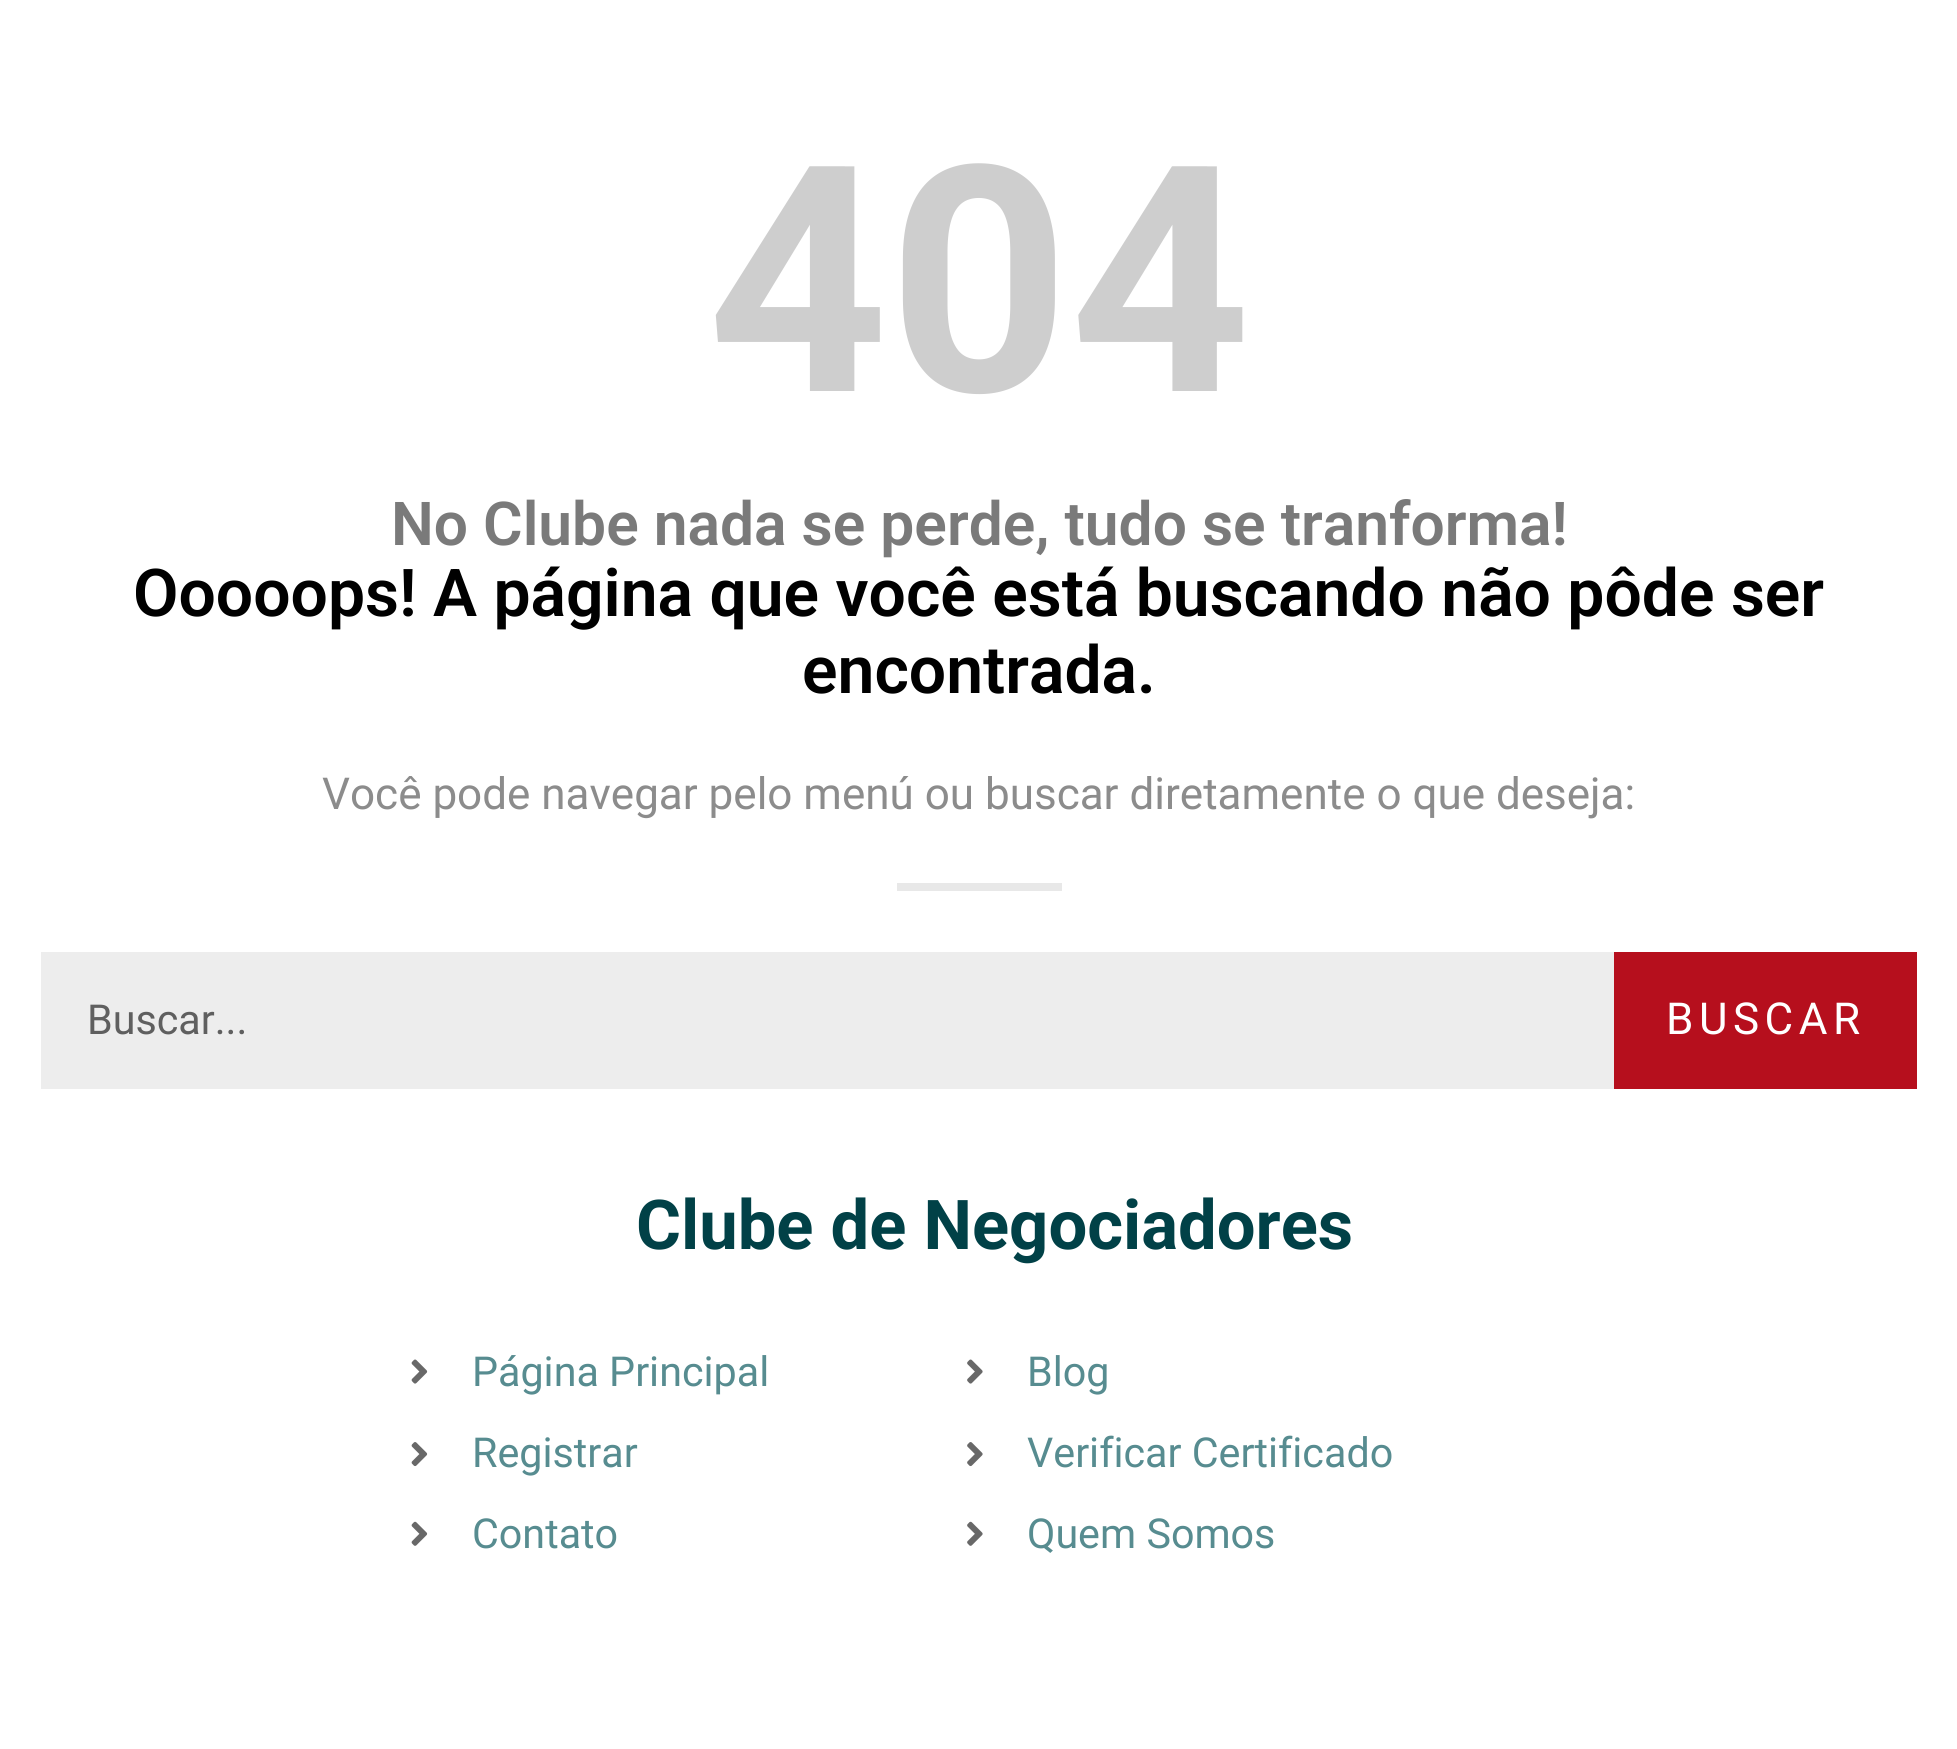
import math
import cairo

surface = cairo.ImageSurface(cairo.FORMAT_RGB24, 1957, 1749)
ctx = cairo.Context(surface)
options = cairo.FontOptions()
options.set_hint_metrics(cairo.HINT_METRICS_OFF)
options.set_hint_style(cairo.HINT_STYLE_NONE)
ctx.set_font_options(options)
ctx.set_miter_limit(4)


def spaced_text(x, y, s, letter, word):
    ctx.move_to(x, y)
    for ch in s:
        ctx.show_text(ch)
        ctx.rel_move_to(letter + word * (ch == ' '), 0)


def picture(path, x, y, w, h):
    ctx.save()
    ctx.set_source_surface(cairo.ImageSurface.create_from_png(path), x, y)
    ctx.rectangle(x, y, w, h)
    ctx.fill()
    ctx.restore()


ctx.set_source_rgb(1, 1, 1)
ctx.paint()
ctx.select_font_face("Roboto", cairo.FONT_SLANT_NORMAL, cairo.FONT_WEIGHT_BOLD)
ctx.set_font_size(316)
ctx.set_source_rgb(0.808, 0.808, 0.808)
ctx.move_to(707, 391)
ctx.show_text("404")
ctx.select_font_face("Roboto SemiBold")
ctx.set_font_size(60.5)
ctx.set_source_rgb(0.478, 0.478, 0.478)
ctx.move_to(391, 545)
ctx.show_text("No Clube nada se perde, tudo se tranforma!")
ctx.set_font_size(66)
ctx.set_source_rgb(0, 0, 0)
ctx.move_to(133, 616)
ctx.show_text("Ooooops! A página que você está buscando não pôde ser")
ctx.move_to(802, 693)
ctx.show_text("encontrada.")
ctx.select_font_face("Roboto")
ctx.set_font_size(44)
ctx.set_source_rgb(0.549, 0.549, 0.549)
ctx.move_to(322, 809)
ctx.show_text("Você pode navegar pelo menú ou buscar diretamente o que deseja:")
ctx.set_source_rgb(0.91, 0.91, 0.91)
ctx.rectangle(897, 883, 165, 8)
ctx.fill()
ctx.set_source_rgb(0.929, 0.929, 0.929)
ctx.rectangle(41, 952, 1573, 137)
ctx.fill()
ctx.set_font_size(41.25)
ctx.set_source_rgb(0.373, 0.373, 0.373)
ctx.move_to(87, 1034)
ctx.show_text("Buscar...")
ctx.set_source_rgb(0.714, 0.059, 0.114)
ctx.rectangle(1614, 952, 303, 137)
ctx.fill()
ctx.set_font_size(44)
ctx.set_source_rgb(1, 1, 1)
spaced_text(1666, 1034, "BUSCAR", 5.5, 0)
ctx.select_font_face("Roboto", cairo.FONT_SLANT_NORMAL, cairo.FONT_WEIGHT_BOLD)
ctx.set_font_size(68.75)
ctx.set_source_rgb(0.004, 0.255, 0.278)
ctx.move_to(636, 1249)
ctx.show_text("Clube de Negociadores")
picture("img1.png", 411, 1359, 17, 25)
ctx.select_font_face("Roboto")
ctx.set_font_size(41.25)
ctx.set_source_rgb(0.341, 0.549, 0.565)
ctx.move_to(472, 1386)
ctx.show_text("Página Principal")
picture("img2.png", 411, 1442, 17, 25)
ctx.move_to(472, 1467)
ctx.show_text("Registrar")
picture("img3.png", 411, 1521, 17, 25)
ctx.move_to(472, 1548)
ctx.show_text("Contato")
picture("img4.png", 967, 1359, 16, 25)
ctx.move_to(1027, 1386)
ctx.show_text("Blog")
picture("img5.png", 967, 1442, 16, 25)
ctx.move_to(1027, 1467)
ctx.show_text("Verificar Certificado")
picture("img6.png", 967, 1521, 16, 25)
ctx.move_to(1027, 1548)
ctx.show_text("Quem Somos")
surface.write_to_png("page.png")
